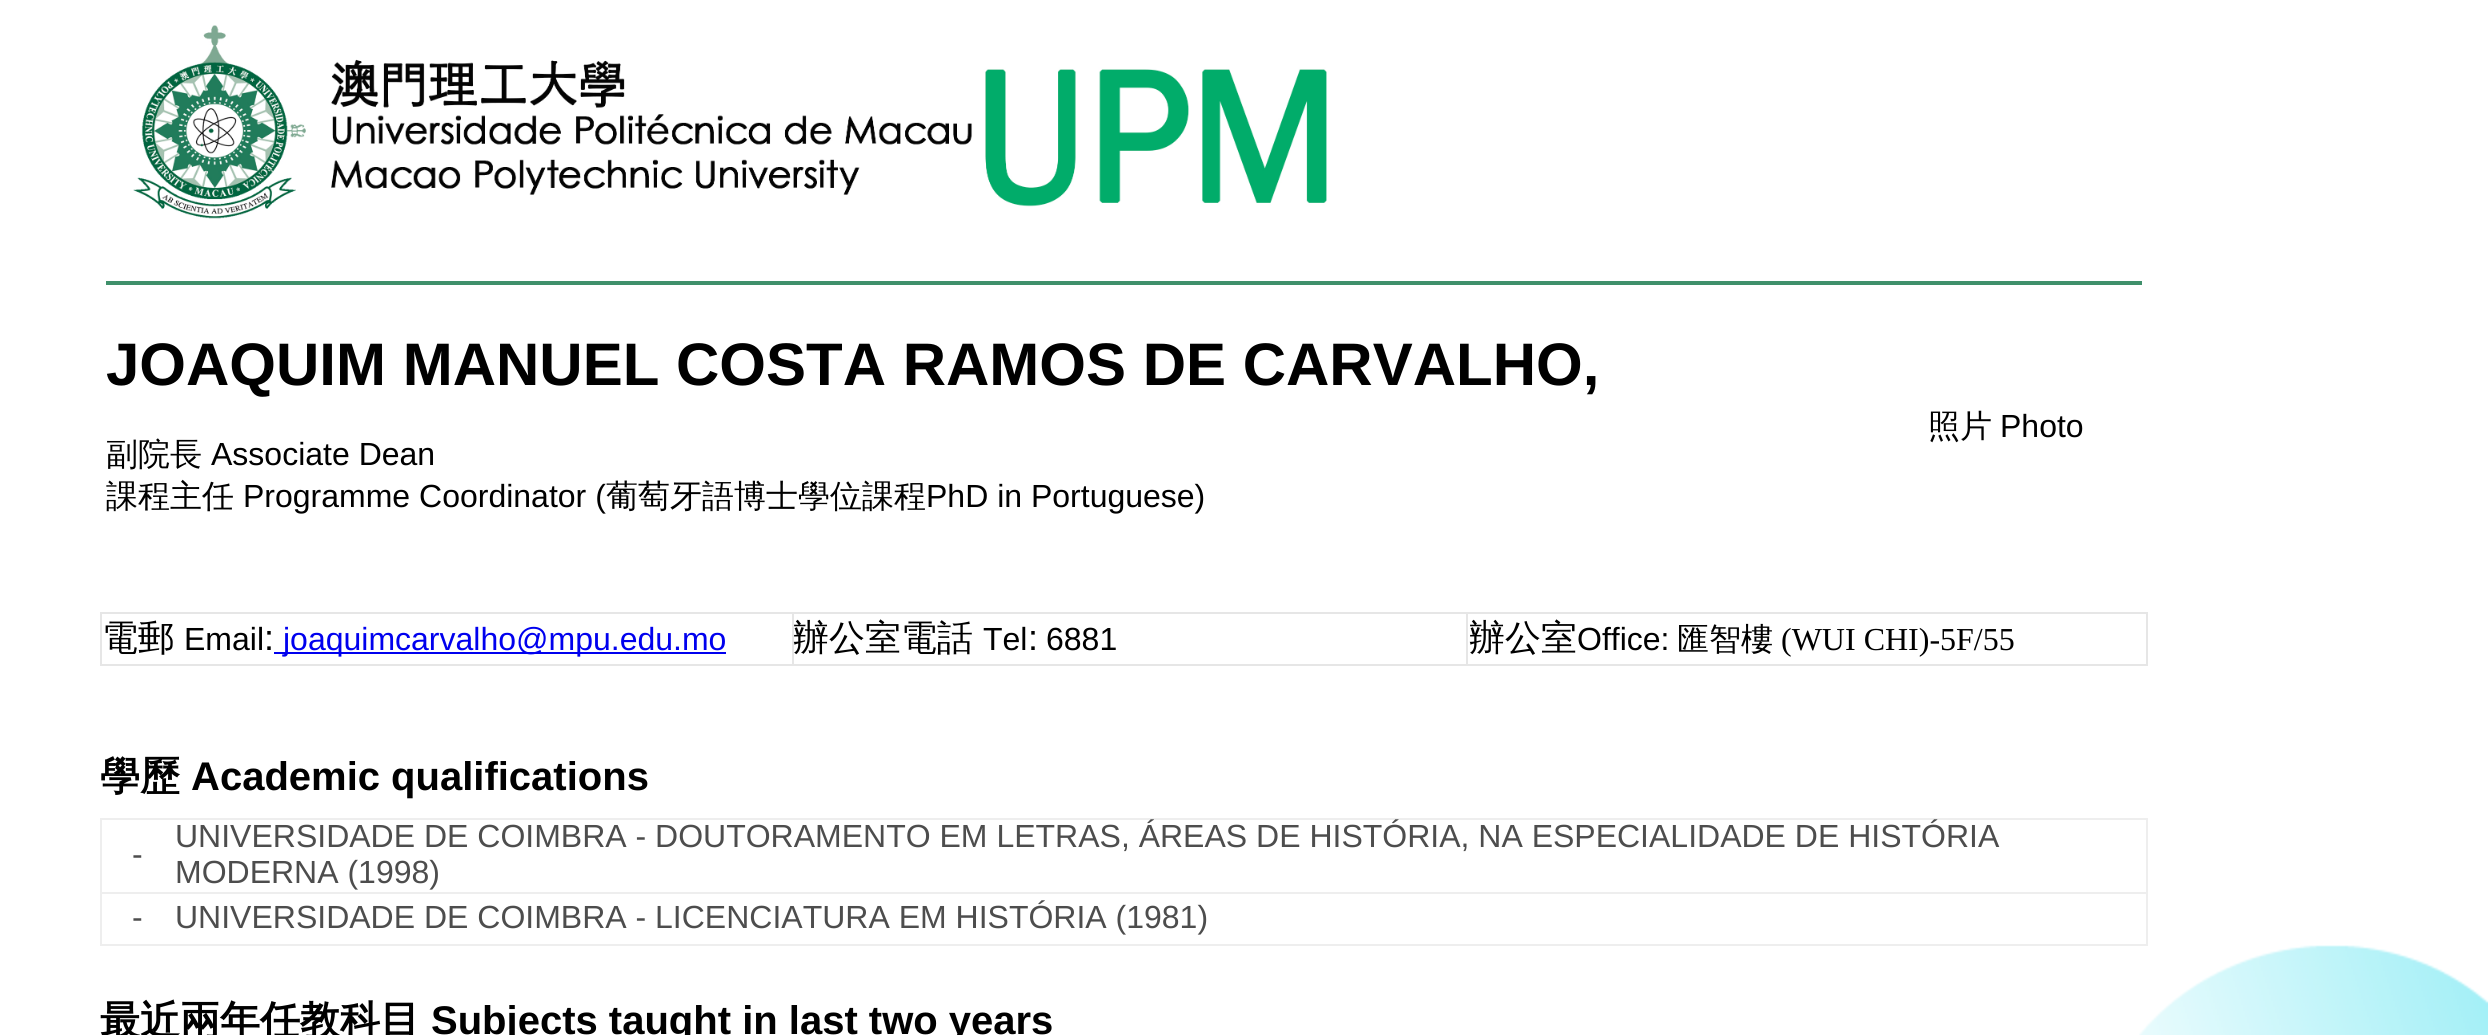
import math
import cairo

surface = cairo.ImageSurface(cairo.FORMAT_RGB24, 2488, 1035)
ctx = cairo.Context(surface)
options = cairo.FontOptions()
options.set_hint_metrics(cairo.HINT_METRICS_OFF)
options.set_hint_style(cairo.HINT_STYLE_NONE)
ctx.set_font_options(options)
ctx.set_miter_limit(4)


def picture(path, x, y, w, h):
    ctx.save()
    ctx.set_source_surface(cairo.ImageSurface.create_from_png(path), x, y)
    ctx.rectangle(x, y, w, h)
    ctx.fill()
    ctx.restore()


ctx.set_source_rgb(1, 1, 1)
ctx.paint()
picture("img1.png", 2139, 945, 349, 90)
picture("img2.png", 133, 25, 1194, 194)
ctx.set_source_rgb(0.247, 0.565, 0.42)
ctx.rectangle(106, 281, 2036, 4)
ctx.fill()
ctx.select_font_face("Liberation Sans", cairo.FONT_SLANT_NORMAL, cairo.FONT_WEIGHT_BOLD)
ctx.set_font_size(60)
ctx.set_source_rgb(0, 0, 0)
ctx.move_to(106, 385)
ctx.show_text("JOAQUIM MANUEL COSTA RAMOS DE CARVALHO,")
ctx.select_font_face("WenQuanYi Zen Hei Medium")
ctx.set_font_size(32)
ctx.move_to(106, 465)
ctx.show_text("副院長")
ctx.select_font_face("Liberation Sans")
ctx.move_to(211, 465)
ctx.show_text("Associate Dean")
ctx.select_font_face("WenQuanYi Zen Hei Medium")
ctx.move_to(106, 507)
ctx.show_text("課程主任")
ctx.select_font_face("Liberation Sans")
ctx.move_to(243, 507)
ctx.show_text("Programme Coordinator (")
ctx.select_font_face("WenQuanYi Zen Hei Medium")
ctx.move_to(606, 507)
ctx.show_text("葡萄牙語博士學位課程")
ctx.select_font_face("Liberation Sans")
ctx.move_to(926, 507)
ctx.show_text("PhD in Portuguese)")
ctx.select_font_face("WenQuanYi Zen Hei Medium")
ctx.move_to(1928, 437)
ctx.show_text("照片")
ctx.select_font_face("Liberation Sans")
ctx.move_to(2000, 437)
ctx.show_text("Photo")
ctx.set_source_rgb(0.902, 0.902, 0.902)
ctx.rectangle(100, 612, 2048, 54)
ctx.fill()
ctx.set_source_rgb(1, 1, 1)
ctx.rectangle(102, 614, 690, 50)
ctx.fill()
ctx.select_font_face("WenQuanYi Zen Hei Medium")
ctx.set_font_size(36)
ctx.set_source_rgb(0, 0, 0)
ctx.move_to(102, 650)
ctx.show_text("電郵")
ctx.select_font_face("Liberation Sans")
ctx.set_font_size(32)
ctx.move_to(184, 650)
ctx.show_text("Email")
ctx.set_font_size(36)
ctx.move_to(264, 650)
ctx.show_text(":")
ctx.set_source_rgb(0, 0, 0.933)
ctx.rectangle(274, 652, 452, 2)
ctx.fill()
ctx.set_font_size(32)
ctx.move_to(283, 650)
ctx.show_text("joaquimcarvalho@mpu.edu.mo")
ctx.set_source_rgb(1, 1, 1)
ctx.rectangle(794, 614, 672, 50)
ctx.fill()
ctx.select_font_face("WenQuanYi Zen Hei Medium")
ctx.set_font_size(36)
ctx.set_source_rgb(0, 0, 0)
ctx.move_to(793, 650)
ctx.show_text("辦公室電話")
ctx.select_font_face("Liberation Sans")
ctx.set_font_size(32)
ctx.move_to(983, 650)
ctx.show_text("Tel")
ctx.set_font_size(36)
ctx.move_to(1028, 650)
ctx.show_text(":")
ctx.set_font_size(32)
ctx.move_to(1046, 650)
ctx.show_text("6881")
ctx.set_source_rgb(1, 1, 1)
ctx.rectangle(1468, 614, 678, 50)
ctx.fill()
ctx.select_font_face("WenQuanYi Zen Hei Medium")
ctx.set_font_size(36)
ctx.set_source_rgb(0, 0, 0)
ctx.move_to(1469, 650)
ctx.show_text("辦公室")
ctx.select_font_face("Liberation Sans")
ctx.set_font_size(32)
ctx.move_to(1577, 650)
ctx.show_text("Office:")
ctx.select_font_face("WenQuanYi Zen Hei Medium")
ctx.move_to(1677, 650)
ctx.show_text("匯智樓")
ctx.select_font_face("Liberation Serif")
ctx.move_to(1781, 650)
ctx.show_text("(WUI CHI)-5F/55")
ctx.select_font_face("WenQuanYi Zen Hei", cairo.FONT_SLANT_NORMAL, cairo.FONT_WEIGHT_BOLD)
ctx.set_font_size(40)
ctx.move_to(100, 790)
ctx.show_text("學歷")
ctx.select_font_face("Liberation Sans", cairo.FONT_SLANT_NORMAL, cairo.FONT_WEIGHT_BOLD)
ctx.move_to(191, 790)
ctx.show_text("Academic qualifications")
ctx.set_source_rgb(0.933, 0.933, 0.933)
ctx.rectangle(100, 818, 2048, 128)
ctx.fill()
ctx.set_source_rgb(1, 1, 1)
ctx.rectangle(102, 820, 2044, 72)
ctx.fill()
ctx.select_font_face("Liberation Sans")
ctx.set_font_size(32)
ctx.set_source_rgb(0.302, 0.302, 0.302)
ctx.move_to(132, 865)
ctx.show_text("-")
ctx.move_to(175, 847)
ctx.show_text("UNIVERSIDADE DE COIMBRA - DOUTORAMENTO EM LETRAS, ÁREAS DE HISTÓRIA, NA ESPECIALIDADE DE HISTÓRIA")
ctx.move_to(175, 883)
ctx.show_text("MODERNA (1998)")
ctx.set_source_rgb(1, 1, 1)
ctx.rectangle(102, 894, 2044, 50)
ctx.fill()
ctx.set_source_rgb(0.302, 0.302, 0.302)
ctx.move_to(132, 928)
ctx.show_text("-")
ctx.move_to(175, 928)
ctx.show_text("UNIVERSIDADE DE COIMBRA - LICENCIATURA EM HISTÓRIA (1981)")
ctx.select_font_face("WenQuanYi Zen Hei", cairo.FONT_SLANT_NORMAL, cairo.FONT_WEIGHT_BOLD)
ctx.set_font_size(40)
ctx.set_source_rgb(0, 0, 0)
ctx.move_to(100, 1034)
ctx.show_text("最近兩年任教科目")
ctx.select_font_face("Liberation Sans", cairo.FONT_SLANT_NORMAL, cairo.FONT_WEIGHT_BOLD)
ctx.move_to(431, 1034)
ctx.show_text("Subjects taught in last two years")
surface.write_to_png("page.png")
